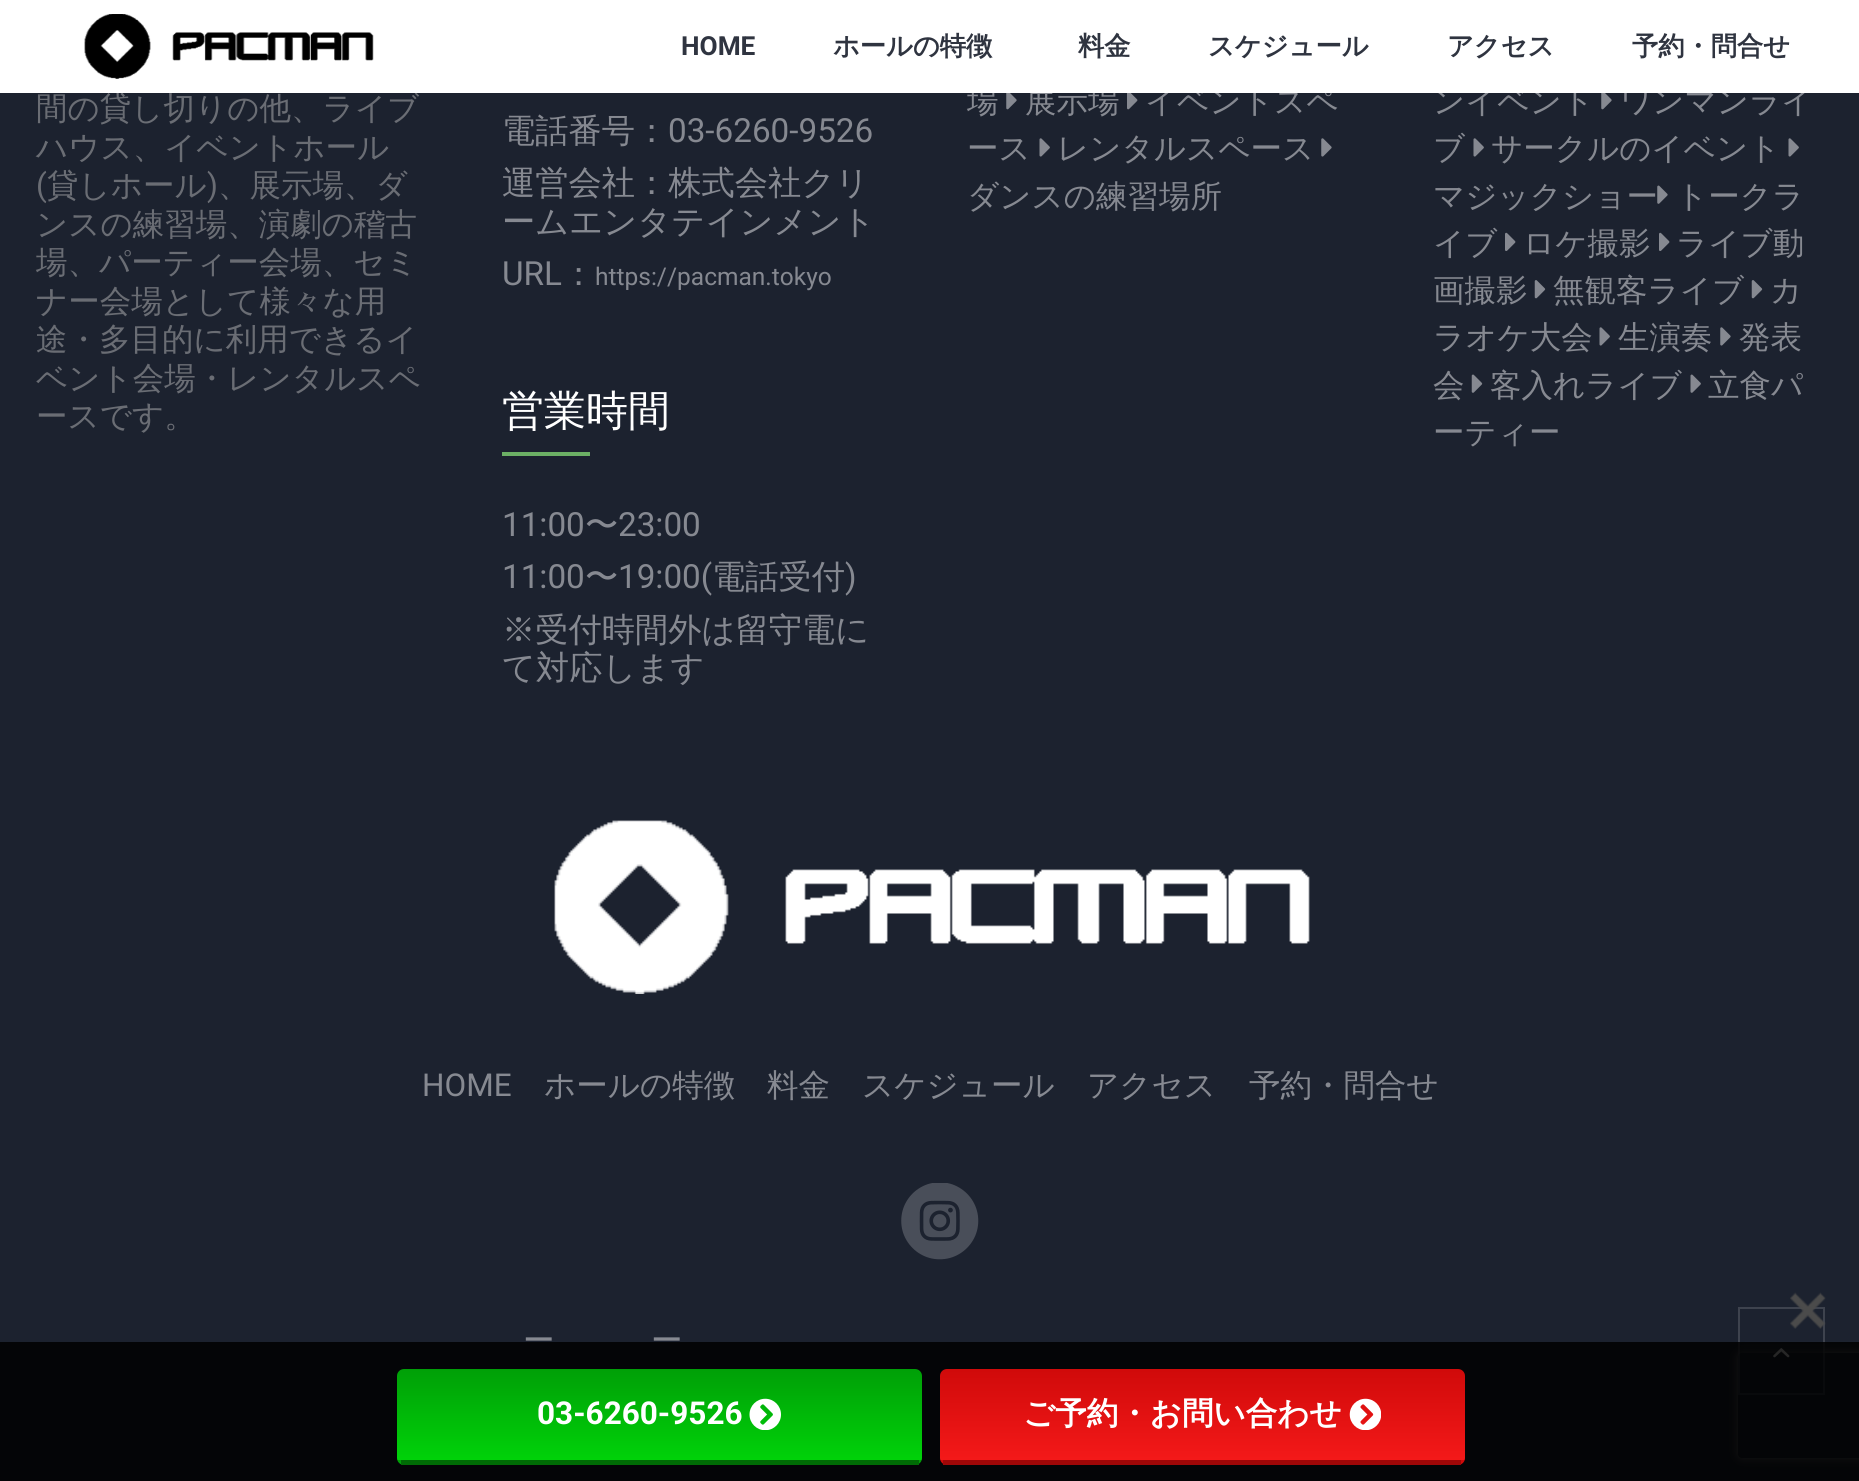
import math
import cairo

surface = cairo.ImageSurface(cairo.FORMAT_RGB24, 1859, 1481)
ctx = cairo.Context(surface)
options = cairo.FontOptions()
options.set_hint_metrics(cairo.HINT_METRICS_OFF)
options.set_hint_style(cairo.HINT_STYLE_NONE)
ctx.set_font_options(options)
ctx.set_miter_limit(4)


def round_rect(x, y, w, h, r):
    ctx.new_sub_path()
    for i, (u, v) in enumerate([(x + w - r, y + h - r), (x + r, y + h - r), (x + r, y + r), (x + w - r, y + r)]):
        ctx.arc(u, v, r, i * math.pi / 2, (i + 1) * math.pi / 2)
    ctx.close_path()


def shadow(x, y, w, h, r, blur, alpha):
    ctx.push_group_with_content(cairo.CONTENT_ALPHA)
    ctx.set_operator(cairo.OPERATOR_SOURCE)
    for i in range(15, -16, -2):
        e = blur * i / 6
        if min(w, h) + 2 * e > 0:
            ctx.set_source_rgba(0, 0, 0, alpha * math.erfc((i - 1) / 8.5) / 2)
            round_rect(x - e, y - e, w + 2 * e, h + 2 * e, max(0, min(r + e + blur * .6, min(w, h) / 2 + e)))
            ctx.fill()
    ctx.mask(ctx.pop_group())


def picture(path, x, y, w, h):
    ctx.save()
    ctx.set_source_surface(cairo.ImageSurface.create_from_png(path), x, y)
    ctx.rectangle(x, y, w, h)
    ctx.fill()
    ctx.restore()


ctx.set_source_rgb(0.11, 0.133, 0.184)
ctx.paint()
ctx.select_font_face("WenQuanYi Zen Hei Medium")
ctx.set_font_size(31.5)
ctx.set_source_rgb(0.416, 0.427, 0.455)
ctx.move_to(36, 119)
ctx.show_text("間の貸し切りの他、ライブ")
ctx.set_source_rgb(0.525, 0.537, 0.569)
ctx.move_to(967, 112)
ctx.show_text("場")
ctx.move_to(1025, 112)
ctx.show_text("展示場")
ctx.move_to(1145, 112)
ctx.show_text("イベントスペ")
ctx.move_to(1620, 112)
ctx.show_text("ワンマンライ")
ctx.move_to(1433, 112)
ctx.show_text("ンイベント")
ctx.set_source_rgb(1, 1, 1)
ctx.rectangle(0, 0, 1859, 93)
ctx.fill()
picture("img1.png", 84, 14, 290, 65)
ctx.select_font_face("Roboto", cairo.FONT_SLANT_NORMAL, cairo.FONT_WEIGHT_BOLD)
ctx.set_font_size(26.25)
ctx.set_source_rgb(0.184, 0.204, 0.251)
ctx.move_to(681, 55)
ctx.show_text("HOME")
ctx.select_font_face("WenQuanYi Zen Hei", cairo.FONT_SLANT_NORMAL, cairo.FONT_WEIGHT_BOLD)
ctx.move_to(833, 55)
ctx.show_text("ホールの特徴")
ctx.move_to(1078, 55)
ctx.show_text("料金")
ctx.move_to(1208, 55)
ctx.show_text("スケジュール")
ctx.move_to(1447, 55)
ctx.show_text("アクセス")
ctx.move_to(1632, 55)
ctx.show_text("予約・問合せ")
ctx.select_font_face("WenQuanYi Zen Hei Medium")
ctx.set_font_size(31.5)
ctx.set_source_rgb(0.416, 0.427, 0.455)
ctx.move_to(36, 158)
ctx.show_text("ハウス、イベントホール")
ctx.select_font_face("Roboto")
ctx.move_to(36, 196)
ctx.show_text("(")
ctx.select_font_face("WenQuanYi Zen Hei Medium")
ctx.move_to(47, 196)
ctx.show_text("貸しホール")
ctx.select_font_face("Roboto")
ctx.move_to(207, 196)
ctx.show_text(")")
ctx.select_font_face("WenQuanYi Zen Hei Medium")
ctx.move_to(218, 196)
ctx.show_text("、展示場、ダ")
ctx.move_to(36, 235)
ctx.show_text("ンスの練習場、演劇の稽古")
ctx.move_to(36, 273)
ctx.show_text("場、パーティー会場、セミ")
ctx.move_to(36, 312)
ctx.show_text("ナー会場として様々な用")
ctx.move_to(36, 350)
ctx.show_text("途・多目的に利用できるイ")
ctx.move_to(36, 389)
ctx.show_text("ベント会場・レンタルスペ")
ctx.move_to(36, 427)
ctx.show_text("ースです。")
ctx.set_font_size(33.25)
ctx.set_source_rgb(0.525, 0.537, 0.569)
ctx.move_to(502, 142)
ctx.show_text("電話番号：")
ctx.select_font_face("Roboto")
ctx.move_to(668, 142)
ctx.show_text("03-6260-9526")
ctx.select_font_face("WenQuanYi Zen Hei Medium")
ctx.move_to(502, 194)
ctx.show_text("運営会社：株式会社クリ")
ctx.move_to(502, 233)
ctx.show_text("ームエンタテインメント")
ctx.select_font_face("Roboto")
ctx.move_to(502, 285)
ctx.show_text("URL")
ctx.select_font_face("WenQuanYi Zen Hei Medium")
ctx.move_to(562, 285)
ctx.show_text("：")
ctx.select_font_face("Roboto")
ctx.set_font_size(24.5)
ctx.move_to(595, 285)
ctx.show_text("https://pacman.tokyo")
ctx.select_font_face("WenQuanYi Zen Hei Medium")
ctx.set_font_size(42)
ctx.set_source_rgb(1, 1, 1)
ctx.move_to(502, 425)
ctx.show_text("営業時間")
ctx.set_source_rgb(0.424, 0.69, 0.396)
ctx.rectangle(502, 452, 88, 4)
ctx.fill()
ctx.select_font_face("Roboto")
ctx.set_font_size(33.25)
ctx.set_source_rgb(0.525, 0.537, 0.569)
ctx.move_to(502, 536)
ctx.show_text("11:00")
ctx.select_font_face("WenQuanYi Zen Hei Medium")
ctx.move_to(585, 536)
ctx.show_text("〜")
ctx.select_font_face("Roboto")
ctx.move_to(618, 536)
ctx.show_text("23:00")
ctx.move_to(502, 588)
ctx.show_text("11:00")
ctx.select_font_face("WenQuanYi Zen Hei Medium")
ctx.move_to(585, 588)
ctx.show_text("〜")
ctx.select_font_face("Roboto")
ctx.move_to(618, 588)
ctx.show_text("19:00(")
ctx.select_font_face("WenQuanYi Zen Hei Medium")
ctx.move_to(712, 588)
ctx.show_text("電話受付")
ctx.select_font_face("Roboto")
ctx.move_to(845, 588)
ctx.show_text(")")
ctx.select_font_face("WenQuanYi Zen Hei Medium")
ctx.move_to(502, 641)
ctx.show_text("※受付時間外は留守電に")
ctx.move_to(502, 679)
ctx.show_text("て対応します")
picture("img2.png", 1006, 93, 11, 17)
picture("img3.png", 1127, 93, 11, 17)
ctx.set_font_size(31.5)
ctx.move_to(967, 159)
ctx.show_text("ース")
picture("img4.png", 1039, 138, 11, 19)
ctx.move_to(1057, 159)
ctx.show_text("レンタルスペース")
picture("img5.png", 1321, 138, 11, 19)
ctx.move_to(967, 207)
ctx.show_text("ダンスの練習場所")
picture("img2.png", 1601, 93, 11, 17)
ctx.move_to(1433, 159)
ctx.show_text("ブ")
picture("img4.png", 1473, 138, 11, 19)
ctx.move_to(1491, 159)
ctx.show_text("サークルのイベント")
picture("img4.png", 1788, 138, 11, 19)
ctx.move_to(1433, 207)
ctx.show_text("マジックショー")
picture("img6.png", 1657, 185, 11, 19)
ctx.move_to(1676, 207)
ctx.show_text("トークラ")
ctx.move_to(1433, 254)
ctx.show_text("イブ")
picture("img7.png", 1659, 232, 11, 19)
ctx.move_to(1676, 254)
ctx.show_text("ライブ動")
ctx.move_to(1433, 301)
ctx.show_text("画撮影")
picture("img7.png", 1505, 232, 11, 19)
ctx.move_to(1523, 254)
ctx.show_text("ロケ撮影")
picture("img8.png", 1534, 280, 12, 19)
ctx.move_to(1553, 301)
ctx.show_text("無観客ライブ")
picture("img8.png", 1751, 280, 12, 19)
ctx.move_to(1770, 301)
ctx.show_text("カ")
ctx.move_to(1433, 348)
ctx.show_text("ラオケ大会")
picture("img4.png", 1599, 327, 11, 19)
ctx.move_to(1618, 348)
ctx.show_text("生演奏")
picture("img5.png", 1720, 327, 11, 19)
ctx.move_to(1739, 348)
ctx.show_text("発表")
ctx.move_to(1433, 396)
ctx.show_text("会")
picture("img9.png", 1690, 374, 11, 19)
ctx.move_to(1708, 396)
ctx.show_text("立食パ")
ctx.move_to(1433, 443)
ctx.show_text("ーティー")
picture("img10.png", 1471, 374, 12, 19)
ctx.move_to(1490, 396)
ctx.show_text("客入れライブ")
ctx.save()
ctx.set_fill_rule(cairo.FILL_RULE_EVEN_ODD)
ctx.new_path()
ctx.move_to(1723, 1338)
ctx.line_to(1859, 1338)
ctx.line_to(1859, 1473)
ctx.line_to(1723, 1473)
ctx.close_path()
ctx.move_to(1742, 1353)
ctx.line_to(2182, 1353)
ctx.curve_to(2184, 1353, 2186, 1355, 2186, 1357)
ctx.line_to(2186, 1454)
ctx.curve_to(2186, 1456, 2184, 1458, 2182, 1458)
ctx.line_to(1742, 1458)
ctx.curve_to(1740, 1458, 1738, 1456, 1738, 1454)
ctx.line_to(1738, 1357)
ctx.curve_to(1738, 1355, 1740, 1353, 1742, 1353)
ctx.close_path()
ctx.clip()
ctx.set_source_rgb(0.502, 0.502, 0.502)
shadow(1738, 1353, 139, 105, 4, 4.5, 1)
ctx.restore()
ctx.set_source_rgba(0.11, 0.133, 0.184, 0.5)
ctx.rectangle(1738, 1346, 87, 9)
ctx.fill()
ctx.rectangle(1739, 1308, 85, 86)
ctx.set_source_rgba(1, 1, 1, 0.15)
ctx.stroke()
picture("img11.png", 1773, 1348, 17, 10)
picture("img12.png", 554, 820, 756, 174)
ctx.select_font_face("Roboto")
ctx.set_source_rgb(0.525, 0.537, 0.569)
ctx.move_to(422, 1096)
ctx.show_text("HOME")
ctx.select_font_face("WenQuanYi Zen Hei Medium")
ctx.move_to(544, 1096)
ctx.show_text("ホールの特徴")
ctx.move_to(767, 1096)
ctx.show_text("料金")
ctx.move_to(862, 1096)
ctx.show_text("スケジュール")
ctx.move_to(1087, 1096)
ctx.show_text("アクセス")
ctx.move_to(1249, 1096)
ctx.show_text("予約・問合せ")
picture("img13.png", 901, 1183, 78, 77)
ctx.move_to(523, 1351)
ctx.show_text("ー")
ctx.move_to(651, 1351)
ctx.show_text("ー")
ctx.set_source_rgba(0, 0, 0, 0.85)
ctx.rectangle(0, 1342, 1859, 139)
ctx.fill()
picture("img14.png", 1790, 1292, 36, 37)
ctx.save()
round_rect(397, 1369, 525, 96, 7)
ctx.clip()
gradient = cairo.LinearGradient(660, 1369, 660, 1460)
gradient.add_color_stop_rgba(0, 0, 0.624, 0.027, 1)
gradient.add_color_stop_rgba(1, 0, 0.824, 0.035, 1)
ctx.set_source(gradient)
ctx.new_path()
ctx.move_to(404, 1369)
ctx.line_to(915, 1369)
ctx.curve_to(919, 1369, 922, 1372, 922, 1376)
ctx.line_to(922, 1460)
ctx.line_to(397, 1460)
ctx.line_to(397, 1376)
ctx.curve_to(397, 1372, 400, 1369, 404, 1369)
ctx.close_path()
ctx.fill()
gradient = cairo.LinearGradient(660, 1460, 660, 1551)
gradient.add_color_stop_rgba(0, 0, 0.624, 0.027, 1)
gradient.add_color_stop_rgba(1, 0, 0.824, 0.035, 1)
ctx.set_source(gradient)
ctx.rectangle(397, 1460, 525, 5)
ctx.fill()
ctx.restore()
ctx.set_source_rgb(0, 0.424, 0.02)
ctx.rectangle(401, 1460, 518, 5)
ctx.fill()
ctx.select_font_face("Roboto", cairo.FONT_SLANT_NORMAL, cairo.FONT_WEIGHT_BOLD)
ctx.set_source_rgb(1, 1, 1)
ctx.move_to(537, 1424)
ctx.show_text("03-6260-9526")
picture("img15.png", 749, 1398, 32, 32)
ctx.save()
round_rect(940, 1369, 525, 96, 7)
ctx.clip()
gradient = cairo.LinearGradient(1202, 1369, 1202, 1460)
gradient.add_color_stop_rgba(0, 0.816, 0.039, 0.039, 1)
gradient.add_color_stop_rgba(1, 0.957, 0.098, 0.098, 1)
ctx.set_source(gradient)
ctx.new_path()
ctx.move_to(947, 1369)
ctx.line_to(1458, 1369)
ctx.curve_to(1462, 1369, 1465, 1372, 1465, 1376)
ctx.line_to(1465, 1460)
ctx.line_to(940, 1460)
ctx.line_to(940, 1376)
ctx.curve_to(940, 1372, 943, 1369, 947, 1369)
ctx.close_path()
ctx.fill()
gradient = cairo.LinearGradient(1202, 1460, 1202, 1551)
gradient.add_color_stop_rgba(0, 0.816, 0.039, 0.039, 1)
gradient.add_color_stop_rgba(1, 0.957, 0.098, 0.098, 1)
ctx.set_source(gradient)
ctx.rectangle(940, 1460, 525, 5)
ctx.fill()
ctx.restore()
ctx.set_source_rgb(0.624, 0.031, 0.031)
ctx.rectangle(943, 1460, 518, 5)
ctx.fill()
ctx.select_font_face("WenQuanYi Zen Hei", cairo.FONT_SLANT_NORMAL, cairo.FONT_WEIGHT_BOLD)
ctx.set_source_rgb(1, 1, 1)
ctx.move_to(1023, 1424)
ctx.show_text("ご予約・お問い合わせ")
picture("img16.png", 1349, 1398, 32, 32)
surface.write_to_png("page.png")
